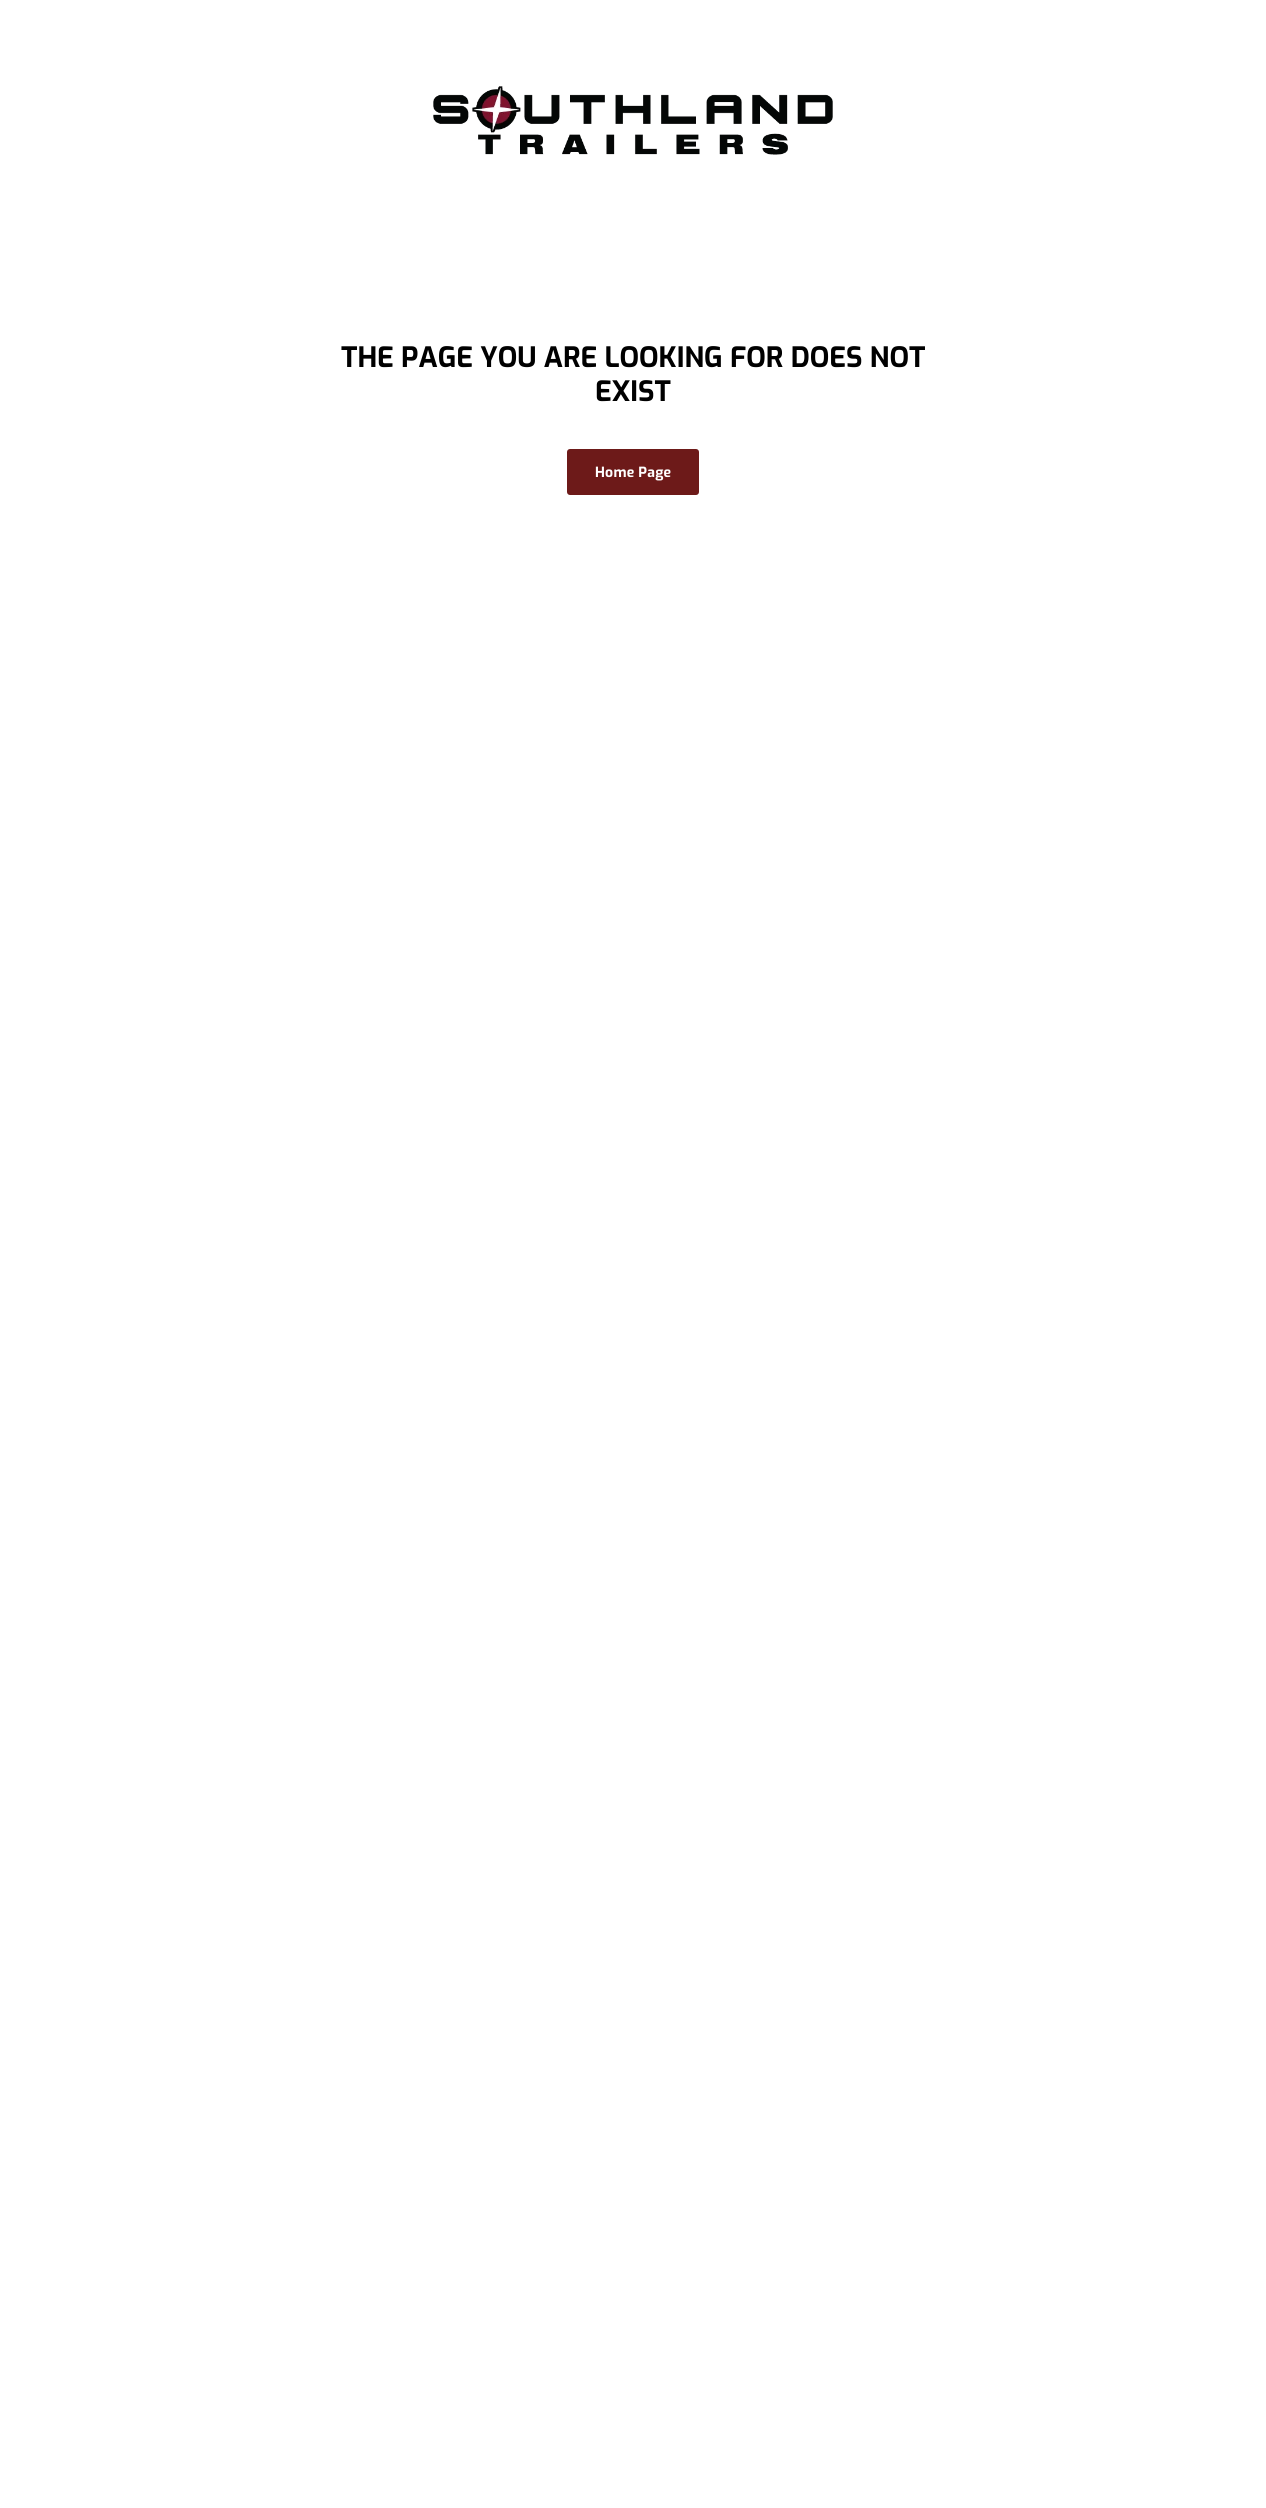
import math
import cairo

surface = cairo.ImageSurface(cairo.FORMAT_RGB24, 1266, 2508)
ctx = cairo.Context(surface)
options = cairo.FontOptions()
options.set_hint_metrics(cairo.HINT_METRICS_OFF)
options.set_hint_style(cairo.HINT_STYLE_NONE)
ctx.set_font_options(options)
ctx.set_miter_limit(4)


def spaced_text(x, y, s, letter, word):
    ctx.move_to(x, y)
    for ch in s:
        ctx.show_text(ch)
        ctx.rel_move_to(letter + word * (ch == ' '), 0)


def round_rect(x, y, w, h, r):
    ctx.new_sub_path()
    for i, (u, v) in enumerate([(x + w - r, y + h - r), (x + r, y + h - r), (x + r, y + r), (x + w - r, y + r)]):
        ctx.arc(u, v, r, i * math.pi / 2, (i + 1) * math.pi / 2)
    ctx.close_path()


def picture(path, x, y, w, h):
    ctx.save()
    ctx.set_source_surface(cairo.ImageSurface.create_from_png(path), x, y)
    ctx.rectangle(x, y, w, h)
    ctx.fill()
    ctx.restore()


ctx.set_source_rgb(1, 1, 1)
ctx.paint()
picture("img1.png", 433, 86, 400, 69)
ctx.select_font_face("Exo", cairo.FONT_SLANT_NORMAL, cairo.FONT_WEIGHT_BOLD)
ctx.set_font_size(28)
ctx.set_source_rgb(0, 0, 0)
ctx.move_to(341, 367)
ctx.show_text("THE PAGE YOU ARE LOOKING FOR DOES NOT")
ctx.move_to(595, 401)
ctx.show_text("EXIST")
ctx.set_source_rgb(0.427, 0.102, 0.098)
round_rect(567, 449, 132, 46, 3)
ctx.fill()
ctx.set_font_size(14)
ctx.set_source_rgb(1, 1, 1)
spaced_text(595, 477, "Home Page", 0.25, 0)
surface.write_to_png("page.png")
